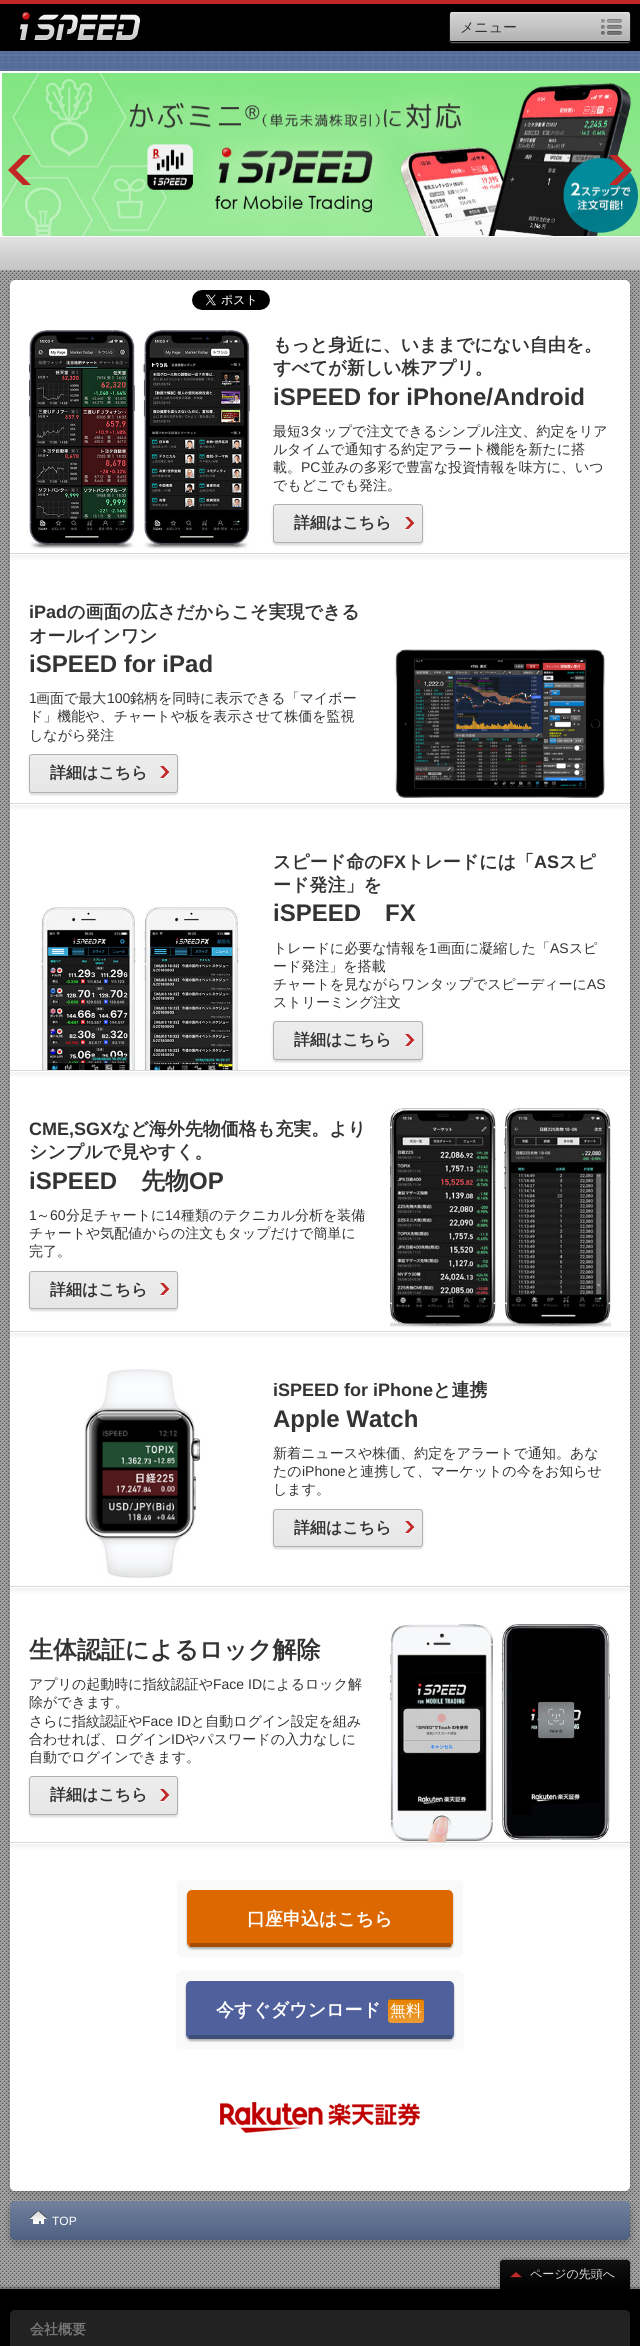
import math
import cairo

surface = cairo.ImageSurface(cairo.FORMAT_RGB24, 640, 2346)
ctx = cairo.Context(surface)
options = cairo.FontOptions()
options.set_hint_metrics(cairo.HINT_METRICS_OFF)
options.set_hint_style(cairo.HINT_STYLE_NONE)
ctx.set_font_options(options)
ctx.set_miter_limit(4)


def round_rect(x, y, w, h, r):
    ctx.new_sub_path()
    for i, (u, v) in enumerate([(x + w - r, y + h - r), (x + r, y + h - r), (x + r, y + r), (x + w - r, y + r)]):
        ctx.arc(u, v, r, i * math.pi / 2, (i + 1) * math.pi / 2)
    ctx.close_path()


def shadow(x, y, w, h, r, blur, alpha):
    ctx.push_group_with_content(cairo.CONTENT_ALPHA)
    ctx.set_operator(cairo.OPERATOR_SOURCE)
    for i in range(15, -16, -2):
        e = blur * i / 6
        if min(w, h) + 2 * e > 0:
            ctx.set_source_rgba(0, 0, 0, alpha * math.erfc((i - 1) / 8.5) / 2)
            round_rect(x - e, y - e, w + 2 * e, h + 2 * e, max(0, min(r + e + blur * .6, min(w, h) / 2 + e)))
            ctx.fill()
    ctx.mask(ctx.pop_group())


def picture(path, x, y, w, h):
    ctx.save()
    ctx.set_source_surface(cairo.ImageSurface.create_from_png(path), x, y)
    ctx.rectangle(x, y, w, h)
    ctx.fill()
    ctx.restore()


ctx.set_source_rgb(1, 1, 1)
ctx.paint()
picture("img1.png", 0, 270, 640, 2019)
ctx.set_source_rgb(0, 0, 0)
ctx.rectangle(0, 4, 640, 47)
ctx.fill()
ctx.set_source_rgb(0.761, 0.153, 0.153)
ctx.rectangle(0, 0, 640, 4)
ctx.fill()
picture("img2.png", 20, 12, 120, 28)
ctx.set_source_rgb(0.4, 0.4, 0.4)
shadow(450, 13, 180, 30, 2, 0.5, 1)
ctx.save()
round_rect(450, 12, 180, 30, 2)
ctx.clip()
gradient = cairo.LinearGradient(540, 13, 540, 41)
gradient.add_color_stop_rgba(0, 0.831, 0.831, 0.831, 1)
gradient.add_color_stop_rgba(1, 0.698, 0.698, 0.698, 1)
ctx.set_source(gradient)
ctx.rectangle(450, 13, 180, 28)
ctx.fill()
ctx.restore()
ctx.set_source_rgb(0.906, 0.906, 0.906)
ctx.new_path()
ctx.move_to(452, 12)
ctx.curve_to(451, 12, 450, 13, 450, 14)
ctx.curve_to(450, 13, 451, 13, 452, 13)
ctx.line_to(628, 13)
ctx.curve_to(629, 13, 630, 13, 630, 14)
ctx.curve_to(630, 13, 629, 12, 628, 12)
ctx.close_path()
ctx.fill()
ctx.set_source_rgb(0, 0, 0)
ctx.new_path()
ctx.move_to(628, 42)
ctx.curve_to(629, 42, 630, 41, 630, 40)
ctx.curve_to(630, 41, 629, 41, 628, 41)
ctx.line_to(452, 41)
ctx.curve_to(451, 41, 450, 41, 450, 40)
ctx.curve_to(450, 41, 451, 42, 452, 42)
ctx.close_path()
ctx.fill()
ctx.select_font_face("WenQuanYi Zen Hei Medium")
ctx.set_font_size(14)
ctx.set_source_rgb(0.2, 0.2, 0.2)
ctx.move_to(460, 32)
ctx.show_text("メニュー")
picture("img3.png", 601, 19, 21, 17)
picture("img4.png", 0, 51, 640, 185)
ctx.set_source_rgb(1, 1, 1)
ctx.rectangle(0, 71, 640, 2)
ctx.fill()
ctx.rectangle(0, 71, 2, 166)
ctx.fill()
picture("img5.png", 2, 73, 638, 163)
gradient = cairo.LinearGradient(320, 237, 320, 270)
gradient.add_color_stop_rgba(0, 0.886, 0.886, 0.886, 1)
gradient.add_color_stop_rgba(1, 0.769, 0.769, 0.769, 1)
ctx.set_source(gradient)
ctx.rectangle(0, 237, 640, 33)
ctx.fill()
picture("img6.png", 8, 155, 23, 30)
picture("img7.png", 609, 155, 23, 30)
ctx.set_source_rgb(0, 0, 0)
shadow(10, 284, 620, 1911, 5, 4, 0.15)
ctx.set_source_rgb(1, 1, 1)
round_rect(10, 280, 620, 1911, 5)
ctx.fill()
picture("img8.png", 192, 290, 78, 20)
picture("img9.png", 10, 553, 620, 7)
picture("img10.png", 29, 330, 221, 219)
ctx.select_font_face("WenQuanYi Zen Hei", cairo.FONT_SLANT_NORMAL, cairo.FONT_WEIGHT_BOLD)
ctx.set_font_size(18)
ctx.set_source_rgb(0.2, 0.2, 0.2)
ctx.move_to(273, 351)
ctx.show_text("もっと身近に、いままでにない自由を。")
ctx.move_to(273, 374)
ctx.show_text("すべてが新しい株アプリ。")
ctx.select_font_face("Liberation Sans", cairo.FONT_SLANT_NORMAL, cairo.FONT_WEIGHT_BOLD)
ctx.set_font_size(24)
ctx.move_to(273, 405)
ctx.show_text("iSPEED for iPhone/Android")
ctx.select_font_face("WenQuanYi Zen Hei Medium")
ctx.set_font_size(14)
ctx.move_to(273, 436)
ctx.show_text("最短")
ctx.select_font_face("Liberation Sans")
ctx.move_to(301, 436)
ctx.show_text("3")
ctx.select_font_face("WenQuanYi Zen Hei Medium")
ctx.move_to(309, 436)
ctx.show_text("タップで注文できるシンプル注文、約定をリア")
ctx.move_to(273, 454)
ctx.show_text("ルタイムで通知する約定アラート機能を新たに搭")
ctx.move_to(273, 472)
ctx.show_text("載。")
ctx.select_font_face("Liberation Sans")
ctx.move_to(301, 472)
ctx.show_text("PC")
ctx.select_font_face("WenQuanYi Zen Hei Medium")
ctx.move_to(321, 472)
ctx.show_text("並みの多彩で豊富な投資情報を味方に、いつ")
ctx.move_to(273, 490)
ctx.show_text("でもどこでも発注。")
ctx.set_source_rgb(0, 0, 0)
shadow(273, 506, 150, 39, 3, 1, 0.15)
ctx.save()
round_rect(273, 504, 150, 39, 3)
ctx.clip()
gradient = cairo.LinearGradient(348, 505, 348, 542)
gradient.add_color_stop_rgba(0, 0.929, 0.929, 0.929, 1)
gradient.add_color_stop_rgba(1, 0.902, 0.902, 0.902, 1)
ctx.set_source(gradient)
ctx.rectangle(273, 505, 150, 37)
ctx.fill()
ctx.restore()
round_rect(273.5, 504.5, 149, 38, 2.5)
ctx.set_source_rgb(0.694, 0.694, 0.694)
ctx.set_line_width(1)
ctx.stroke()
ctx.select_font_face("WenQuanYi Zen Hei", cairo.FONT_SLANT_NORMAL, cairo.FONT_WEIGHT_BOLD)
ctx.set_font_size(16)
ctx.set_source_rgb(0.2, 0.2, 0.2)
ctx.move_to(294, 528)
ctx.show_text("詳細はこちら")
picture("img11.png", 405, 517, 10, 13)
picture("img9.png", 10, 803, 620, 7)
ctx.select_font_face("Liberation Sans", cairo.FONT_SLANT_NORMAL, cairo.FONT_WEIGHT_BOLD)
ctx.set_font_size(18)
ctx.move_to(29, 618)
ctx.show_text("iPad")
ctx.select_font_face("WenQuanYi Zen Hei", cairo.FONT_SLANT_NORMAL, cairo.FONT_WEIGHT_BOLD)
ctx.move_to(67, 618)
ctx.show_text("の画面の広さだからこそ実現できる")
ctx.move_to(29, 642)
ctx.show_text("オールインワン")
ctx.select_font_face("Liberation Sans", cairo.FONT_SLANT_NORMAL, cairo.FONT_WEIGHT_BOLD)
ctx.set_font_size(24)
ctx.move_to(29, 672)
ctx.show_text("iSPEED for iPad")
ctx.select_font_face("Liberation Sans")
ctx.set_font_size(14)
ctx.move_to(29, 703)
ctx.show_text("1")
ctx.select_font_face("WenQuanYi Zen Hei Medium")
ctx.move_to(36, 703)
ctx.show_text("画面で最大")
ctx.select_font_face("Liberation Sans")
ctx.move_to(107, 703)
ctx.show_text("100")
ctx.select_font_face("WenQuanYi Zen Hei Medium")
ctx.move_to(130, 703)
ctx.show_text("銘柄を同時に表示できる「マイボー")
ctx.move_to(29, 721)
ctx.show_text("ド」機能や、チャートや板を表示させて株価を監視")
ctx.move_to(29, 740)
ctx.show_text("しながら発注")
ctx.set_source_rgb(0, 0, 0)
shadow(29, 756, 149, 39, 3, 1, 0.15)
ctx.save()
round_rect(29, 754, 149, 39, 3)
ctx.clip()
gradient = cairo.LinearGradient(104, 755, 104, 792)
gradient.add_color_stop_rgba(0, 0.929, 0.929, 0.929, 1)
gradient.add_color_stop_rgba(1, 0.902, 0.902, 0.902, 1)
ctx.set_source(gradient)
ctx.rectangle(29, 755, 149, 37)
ctx.fill()
ctx.restore()
round_rect(29.5, 754.5, 148, 38, 2.5)
ctx.set_source_rgb(0.694, 0.694, 0.694)
ctx.stroke()
ctx.select_font_face("WenQuanYi Zen Hei", cairo.FONT_SLANT_NORMAL, cairo.FONT_WEIGHT_BOLD)
ctx.set_font_size(16)
ctx.set_source_rgb(0.2, 0.2, 0.2)
ctx.move_to(50, 778)
ctx.show_text("詳細はこちら")
picture("img12.png", 160, 766, 10, 13)
picture("img13.png", 395, 649, 210, 149)
picture("img9.png", 10, 1070, 620, 7)
picture("img14.png", 40, 907, 200, 163)
ctx.set_font_size(18)
ctx.move_to(273, 868)
ctx.show_text("スピード命の")
ctx.select_font_face("Liberation Sans", cairo.FONT_SLANT_NORMAL, cairo.FONT_WEIGHT_BOLD)
ctx.move_to(383, 868)
ctx.show_text("FX")
ctx.select_font_face("WenQuanYi Zen Hei", cairo.FONT_SLANT_NORMAL, cairo.FONT_WEIGHT_BOLD)
ctx.move_to(406, 868)
ctx.show_text("トレードには「")
ctx.select_font_face("Liberation Sans", cairo.FONT_SLANT_NORMAL, cairo.FONT_WEIGHT_BOLD)
ctx.move_to(534, 868)
ctx.show_text("AS")
ctx.select_font_face("WenQuanYi Zen Hei", cairo.FONT_SLANT_NORMAL, cairo.FONT_WEIGHT_BOLD)
ctx.move_to(559, 868)
ctx.show_text("スピ")
ctx.move_to(273, 891)
ctx.show_text("ード発注」を")
ctx.select_font_face("Liberation Sans", cairo.FONT_SLANT_NORMAL, cairo.FONT_WEIGHT_BOLD)
ctx.set_font_size(24)
ctx.move_to(273, 921)
ctx.show_text("iSPEED")
ctx.move_to(385, 921)
ctx.show_text("FX")
ctx.select_font_face("WenQuanYi Zen Hei Medium")
ctx.set_font_size(14)
ctx.move_to(273, 953)
ctx.show_text("トレードに必要な情報を")
ctx.select_font_face("Liberation Sans")
ctx.move_to(429, 953)
ctx.show_text("1")
ctx.select_font_face("WenQuanYi Zen Hei Medium")
ctx.move_to(437, 953)
ctx.show_text("画面に凝縮した「")
ctx.select_font_face("Liberation Sans")
ctx.move_to(550, 953)
ctx.show_text("AS")
ctx.select_font_face("WenQuanYi Zen Hei Medium")
ctx.move_to(569, 953)
ctx.show_text("スピ")
ctx.move_to(273, 971)
ctx.show_text("ード発注」を搭載")
ctx.move_to(273, 989)
ctx.show_text("チャートを見ながらワンタップでスピーディーに")
ctx.select_font_face("Liberation Sans")
ctx.move_to(587, 989)
ctx.show_text("AS")
ctx.select_font_face("WenQuanYi Zen Hei Medium")
ctx.move_to(273, 1007)
ctx.show_text("ストリーミング注文")
ctx.set_source_rgb(0, 0, 0)
shadow(273, 1023, 150, 39, 3, 1, 0.15)
ctx.save()
round_rect(273, 1021, 150, 39, 3)
ctx.clip()
gradient = cairo.LinearGradient(348, 1022, 348, 1059)
gradient.add_color_stop_rgba(0, 0.929, 0.929, 0.929, 1)
gradient.add_color_stop_rgba(1, 0.902, 0.902, 0.902, 1)
ctx.set_source(gradient)
ctx.rectangle(273, 1022, 150, 37)
ctx.fill()
ctx.restore()
round_rect(273.5, 1021.5, 149, 38, 2.5)
ctx.set_source_rgb(0.694, 0.694, 0.694)
ctx.stroke()
ctx.select_font_face("WenQuanYi Zen Hei", cairo.FONT_SLANT_NORMAL, cairo.FONT_WEIGHT_BOLD)
ctx.set_font_size(16)
ctx.set_source_rgb(0.2, 0.2, 0.2)
ctx.move_to(294, 1045)
ctx.show_text("詳細はこちら")
picture("img11.png", 405, 1034, 10, 13)
picture("img9.png", 10, 1331, 620, 7)
ctx.select_font_face("Liberation Sans", cairo.FONT_SLANT_NORMAL, cairo.FONT_WEIGHT_BOLD)
ctx.set_font_size(18)
ctx.move_to(29, 1135)
ctx.show_text("CME,SGX")
ctx.select_font_face("WenQuanYi Zen Hei", cairo.FONT_SLANT_NORMAL, cairo.FONT_WEIGHT_BOLD)
ctx.move_to(112, 1135)
ctx.show_text("など海外先物価格も充実。より")
ctx.move_to(29, 1158)
ctx.show_text("シンプルで見やすく。")
ctx.select_font_face("Liberation Sans", cairo.FONT_SLANT_NORMAL, cairo.FONT_WEIGHT_BOLD)
ctx.set_font_size(24)
ctx.move_to(29, 1189)
ctx.show_text("iSPEED")
ctx.select_font_face("WenQuanYi Zen Hei", cairo.FONT_SLANT_NORMAL, cairo.FONT_WEIGHT_BOLD)
ctx.move_to(141, 1189)
ctx.show_text("先物")
ctx.select_font_face("Liberation Sans", cairo.FONT_SLANT_NORMAL, cairo.FONT_WEIGHT_BOLD)
ctx.move_to(189, 1189)
ctx.show_text("OP")
ctx.select_font_face("Liberation Sans")
ctx.set_font_size(14)
ctx.move_to(29, 1220)
ctx.show_text("1")
ctx.select_font_face("WenQuanYi Zen Hei Medium")
ctx.move_to(36, 1220)
ctx.show_text("～")
ctx.select_font_face("Liberation Sans")
ctx.move_to(50, 1220)
ctx.show_text("60")
ctx.select_font_face("WenQuanYi Zen Hei Medium")
ctx.move_to(66, 1220)
ctx.show_text("分足チャートに")
ctx.select_font_face("Liberation Sans")
ctx.move_to(165, 1220)
ctx.show_text("14")
ctx.select_font_face("WenQuanYi Zen Hei Medium")
ctx.move_to(181, 1220)
ctx.show_text("種類のテクニカル分析を装備")
ctx.move_to(29, 1238)
ctx.show_text("チャートや気配値からの注文もタップだけで簡単に")
ctx.move_to(29, 1256)
ctx.show_text("完了。")
ctx.set_source_rgb(0, 0, 0)
shadow(29, 1273, 149, 38, 3, 1, 0.15)
ctx.save()
round_rect(29, 1271, 149, 38, 3)
ctx.clip()
gradient = cairo.LinearGradient(104, 1272, 104, 1308)
gradient.add_color_stop_rgba(0, 0.929, 0.929, 0.929, 1)
gradient.add_color_stop_rgba(1, 0.902, 0.902, 0.902, 1)
ctx.set_source(gradient)
ctx.rectangle(29, 1272, 149, 36)
ctx.fill()
ctx.restore()
round_rect(29.5, 1271.5, 148, 37, 2.5)
ctx.set_source_rgb(0.694, 0.694, 0.694)
ctx.stroke()
ctx.select_font_face("WenQuanYi Zen Hei", cairo.FONT_SLANT_NORMAL, cairo.FONT_WEIGHT_BOLD)
ctx.set_font_size(16)
ctx.set_source_rgb(0.2, 0.2, 0.2)
ctx.move_to(50, 1295)
ctx.show_text("詳細はこちら")
picture("img15.png", 160, 1283, 10, 13)
picture("img16.png", 390, 1108, 221, 220)
picture("img9.png", 10, 1586, 620, 7)
picture("img17.png", 84, 1369, 118, 209)
ctx.select_font_face("Liberation Sans", cairo.FONT_SLANT_NORMAL, cairo.FONT_WEIGHT_BOLD)
ctx.set_font_size(18)
ctx.move_to(273, 1396)
ctx.show_text("iSPEED for iPhone")
ctx.select_font_face("WenQuanYi Zen Hei", cairo.FONT_SLANT_NORMAL, cairo.FONT_WEIGHT_BOLD)
ctx.move_to(433, 1396)
ctx.show_text("と連携")
ctx.select_font_face("Liberation Sans", cairo.FONT_SLANT_NORMAL, cairo.FONT_WEIGHT_BOLD)
ctx.set_font_size(24)
ctx.move_to(273, 1427)
ctx.show_text("Apple Watch")
ctx.select_font_face("WenQuanYi Zen Hei Medium")
ctx.set_font_size(14)
ctx.move_to(273, 1458)
ctx.show_text("新着ニュースや株価、約定をアラートで通知。あな")
ctx.move_to(273, 1476)
ctx.show_text("たの")
ctx.select_font_face("Liberation Sans")
ctx.move_to(302, 1476)
ctx.show_text("iPhone")
ctx.select_font_face("WenQuanYi Zen Hei Medium")
ctx.move_to(346, 1476)
ctx.show_text("と連携して、マーケットの今をお知らせ")
ctx.move_to(273, 1494)
ctx.show_text("します。")
ctx.set_source_rgb(0, 0, 0)
shadow(273, 1511, 150, 38, 3, 1, 0.15)
ctx.save()
round_rect(273, 1509, 150, 38, 3)
ctx.clip()
gradient = cairo.LinearGradient(348, 1510, 348, 1546)
gradient.add_color_stop_rgba(0, 0.929, 0.929, 0.929, 1)
gradient.add_color_stop_rgba(1, 0.902, 0.902, 0.902, 1)
ctx.set_source(gradient)
ctx.rectangle(273, 1510, 150, 36)
ctx.fill()
ctx.restore()
round_rect(273.5, 1509.5, 149, 37, 2.5)
ctx.set_source_rgb(0.694, 0.694, 0.694)
ctx.stroke()
ctx.select_font_face("WenQuanYi Zen Hei", cairo.FONT_SLANT_NORMAL, cairo.FONT_WEIGHT_BOLD)
ctx.set_font_size(16)
ctx.set_source_rgb(0.2, 0.2, 0.2)
ctx.move_to(294, 1533)
ctx.show_text("詳細はこちら")
picture("img15.png", 405, 1521, 10, 13)
picture("img9.png", 10, 1842, 620, 7)
ctx.set_font_size(24)
ctx.move_to(29, 1658)
ctx.show_text("生体認証によるロック解除")
ctx.select_font_face("WenQuanYi Zen Hei Medium")
ctx.set_font_size(14)
ctx.move_to(29, 1689)
ctx.show_text("アプリの起動時に指紋認証や")
ctx.select_font_face("Liberation Sans")
ctx.move_to(213, 1689)
ctx.show_text("Face ID")
ctx.select_font_face("WenQuanYi Zen Hei Medium")
ctx.move_to(262, 1689)
ctx.show_text("によるロック解")
ctx.move_to(29, 1707)
ctx.show_text("除ができます。")
ctx.move_to(29, 1726)
ctx.show_text("さらに指紋認証や")
ctx.select_font_face("Liberation Sans")
ctx.move_to(142, 1726)
ctx.show_text("Face ID")
ctx.select_font_face("WenQuanYi Zen Hei Medium")
ctx.move_to(191, 1726)
ctx.show_text("と自動ログイン設定を組み")
ctx.move_to(29, 1744)
ctx.show_text("合わせれば、ログイン")
ctx.select_font_face("Liberation Sans")
ctx.move_to(171, 1744)
ctx.show_text("ID")
ctx.select_font_face("WenQuanYi Zen Hei Medium")
ctx.move_to(185, 1744)
ctx.show_text("やパスワードの入力なしに")
ctx.move_to(29, 1762)
ctx.show_text("自動でログインできます。")
ctx.set_source_rgb(0, 0, 0)
shadow(29, 1778, 149, 39, 3, 1, 0.15)
ctx.save()
round_rect(29, 1776, 149, 39, 3)
ctx.clip()
gradient = cairo.LinearGradient(104, 1777, 104, 1814)
gradient.add_color_stop_rgba(0, 0.929, 0.929, 0.929, 1)
gradient.add_color_stop_rgba(1, 0.902, 0.902, 0.902, 1)
ctx.set_source(gradient)
ctx.rectangle(29, 1777, 149, 37)
ctx.fill()
ctx.restore()
round_rect(29.5, 1776.5, 148, 38, 2.5)
ctx.set_source_rgb(0.694, 0.694, 0.694)
ctx.stroke()
ctx.select_font_face("WenQuanYi Zen Hei", cairo.FONT_SLANT_NORMAL, cairo.FONT_WEIGHT_BOLD)
ctx.set_font_size(16)
ctx.set_source_rgb(0.2, 0.2, 0.2)
ctx.move_to(50, 1800)
ctx.show_text("詳細はこちら")
picture("img11.png", 160, 1789, 10, 13)
picture("img18.png", 390, 1624, 221, 218)
ctx.set_source_rgb(0.973, 0.973, 0.973)
round_rect(177, 1880, 286, 77, 5)
ctx.fill()
ctx.set_source_rgb(0, 0, 0)
shadow(187, 1892, 266, 57, 5, 1, 0.3)
ctx.set_source_rgb(0.867, 0.408, 0)
round_rect(187, 1890, 266, 57, 5)
ctx.fill()
ctx.set_source_rgb(0.639, 0.302, 0.016)
ctx.rectangle(190, 1943, 261, 4)
ctx.fill()
ctx.set_font_size(18)
ctx.set_source_rgb(1, 1, 1)
ctx.move_to(247, 1925)
ctx.show_text("口座申込はこちら")
ctx.set_source_rgb(0.973, 0.973, 0.973)
round_rect(176, 1971, 288, 78, 5)
ctx.fill()
ctx.set_source_rgb(0, 0, 0)
shadow(186, 1983, 268, 58, 5, 1, 0.3)
ctx.set_source_rgb(0.314, 0.376, 0.612)
round_rect(186, 1981, 268, 58, 5)
ctx.fill()
ctx.set_source_rgb(0.235, 0.302, 0.478)
ctx.rectangle(189, 2035, 263, 4)
ctx.fill()
ctx.set_source_rgb(1, 1, 1)
ctx.move_to(216, 2016)
ctx.show_text("今すぐダウンロード")
ctx.save()
round_rect(388, 1999, 36, 24, 3)
ctx.clip()
gradient = cairo.LinearGradient(406, 1977, 406, 2000)
gradient.add_color_stop_rgba(0, 0.906, 0.51, 0.004, 1)
gradient.add_color_stop_rgba(1, 0.925, 0.608, 0.196, 1)
ctx.set_source(gradient)
ctx.rectangle(388, 1999, 36, 1)
ctx.fill()
gradient = cairo.LinearGradient(406, 2000, 406, 2023)
gradient.add_color_stop_rgba(0, 0.906, 0.51, 0.004, 1)
gradient.add_color_stop_rgba(1, 0.925, 0.608, 0.196, 1)
ctx.set_source(gradient)
ctx.new_path()
ctx.move_to(388, 2000)
ctx.line_to(424, 2000)
ctx.line_to(424, 2020)
ctx.curve_to(424, 2021.5, 422.5, 2023, 421, 2023)
ctx.line_to(391, 2023)
ctx.curve_to(389.5, 2023, 388, 2021.5, 388, 2020)
ctx.close_path()
ctx.fill()
ctx.restore()
ctx.set_source_rgb(0.635, 0.357, 0)
ctx.rectangle(390, 1999, 33, 1)
ctx.fill()
ctx.select_font_face("WenQuanYi Zen Hei Medium")
ctx.set_font_size(16)
ctx.set_source_rgb(1, 1, 1)
ctx.move_to(390, 2016)
ctx.show_text("無料")
picture("img19.png", 220, 2102, 200, 31)
ctx.set_source_rgb(0, 0, 0)
shadow(10, 2205, 620, 39, 5, 4, 0.3)
gradient = cairo.LinearGradient(320, 2201, 320, 2240)
gradient.add_color_stop_rgba(0, 0.443, 0.502, 0.612, 1)
gradient.add_color_stop_rgba(1, 0.306, 0.38, 0.514, 1)
ctx.set_source(gradient)
round_rect(10, 2201, 620, 39, 5)
ctx.fill()
picture("img20.png", 30, 2211, 17, 13)
ctx.select_font_face("Liberation Sans")
ctx.set_font_size(12)
ctx.set_source_rgb(1, 1, 1)
ctx.move_to(52, 2225)
ctx.show_text("TOP")
ctx.set_source_rgb(0, 0, 0)
shadow(0, 2287, 640, 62, 0, 1, 0.3)
ctx.set_source_rgb(0, 0, 0)
ctx.rectangle(0, 2289, 640, 57)
ctx.fill()
ctx.set_source_rgb(0, 0, 0)
shadow(500, 2259, 130, 29, 3, 1.5, 0.3)
gradient = cairo.LinearGradient(565, 2260, 565, 2289)
gradient.add_color_stop_rgba(0, 0.067, 0.067, 0.067, 1)
gradient.add_color_stop_rgba(1, 0, 0, 0, 1)
ctx.set_source(gradient)
ctx.new_path()
ctx.move_to(503, 2260)
ctx.line_to(627, 2260)
ctx.curve_to(628.5, 2260, 630, 2261.5, 630, 2263)
ctx.line_to(630, 2289)
ctx.line_to(500, 2289)
ctx.line_to(500, 2263)
ctx.curve_to(500, 2261.5, 501.5, 2260, 503, 2260)
ctx.close_path()
ctx.fill()
picture("img21.png", 510, 2272, 12, 6)
ctx.select_font_face("WenQuanYi Zen Hei Medium")
ctx.set_source_rgb(0.867, 0.867, 0.867)
ctx.move_to(530, 2278)
ctx.show_text("ページの先頭へ")
ctx.set_source_rgb(0.133, 0.133, 0.133)
round_rect(10, 2310, 620, 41, 5)
ctx.fill()
ctx.select_font_face("WenQuanYi Zen Hei", cairo.FONT_SLANT_NORMAL, cairo.FONT_WEIGHT_BOLD)
ctx.set_font_size(14)
ctx.set_source_rgb(0.467, 0.467, 0.467)
ctx.move_to(30, 2334)
ctx.show_text("会社概要")
surface.write_to_png("page.png")
